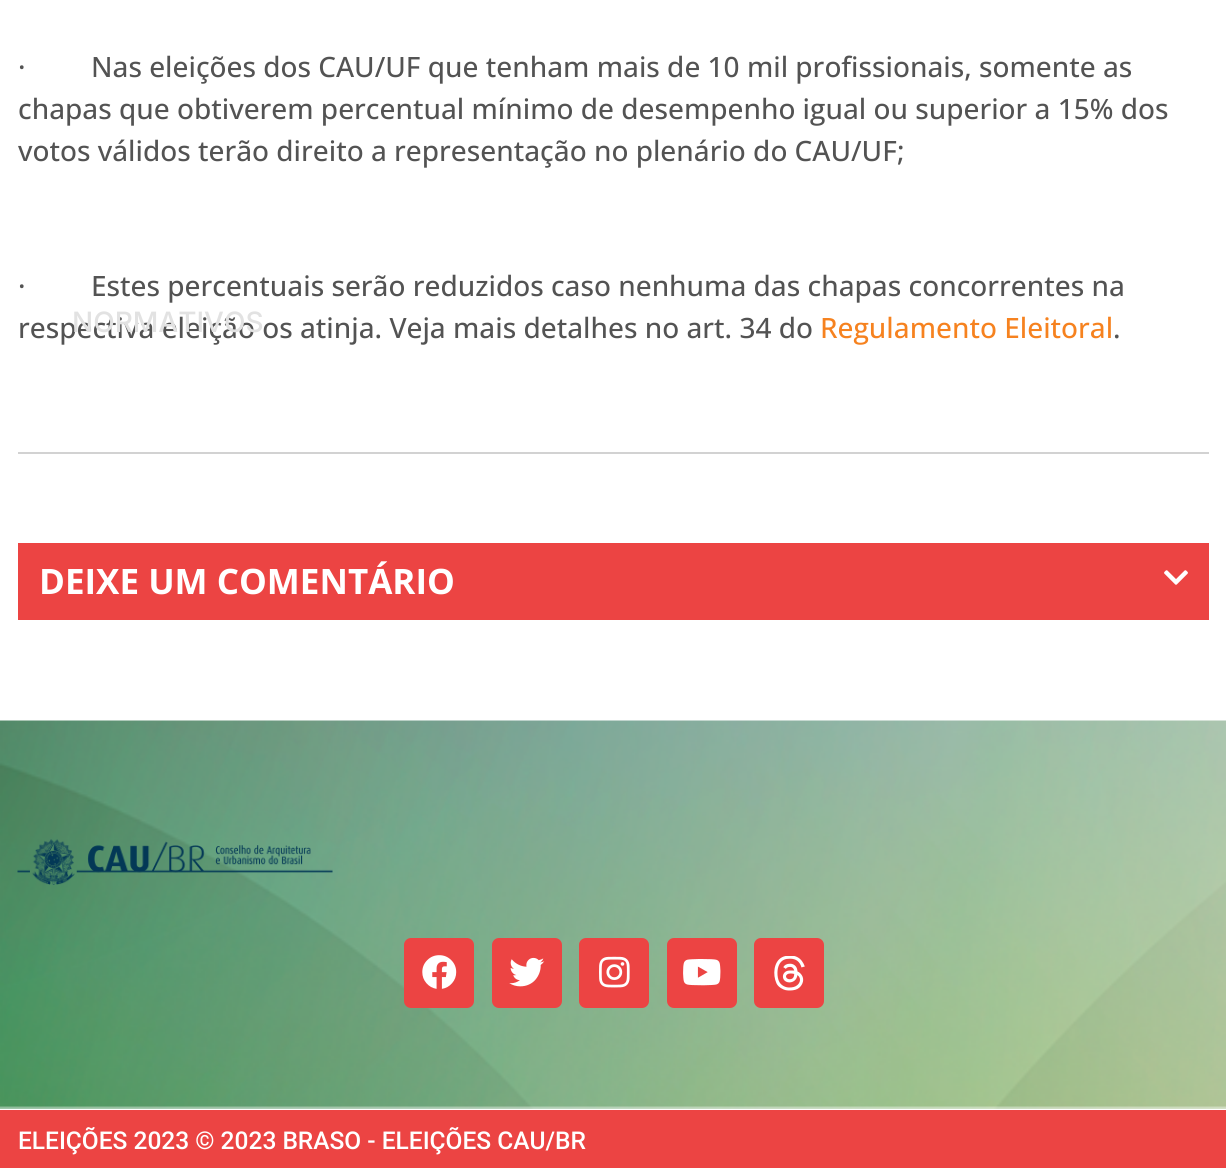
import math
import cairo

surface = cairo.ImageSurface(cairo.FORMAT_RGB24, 1226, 1168)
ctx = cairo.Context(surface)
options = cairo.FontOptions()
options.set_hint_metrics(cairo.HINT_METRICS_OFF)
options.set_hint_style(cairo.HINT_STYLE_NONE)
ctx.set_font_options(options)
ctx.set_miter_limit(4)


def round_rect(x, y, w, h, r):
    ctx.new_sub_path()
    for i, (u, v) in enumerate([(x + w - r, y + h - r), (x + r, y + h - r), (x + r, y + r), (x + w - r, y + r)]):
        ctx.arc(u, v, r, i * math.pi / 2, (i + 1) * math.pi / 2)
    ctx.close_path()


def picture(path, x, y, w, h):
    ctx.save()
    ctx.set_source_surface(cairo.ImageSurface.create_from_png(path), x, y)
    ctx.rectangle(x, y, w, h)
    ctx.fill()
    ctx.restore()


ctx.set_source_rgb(1, 1, 1)
ctx.paint()
ctx.select_font_face("Open Sans Medium")
ctx.set_font_size(28)
ctx.set_source_rgb(0.325, 0.325, 0.325)
ctx.move_to(18, 77)
ctx.show_text("·         Nas eleições dos CAU/UF que tenham mais de 10 mil profissionais, somente as")
ctx.move_to(18, 119)
ctx.show_text("chapas que obtiverem percentual mínimo de desempenho igual ou superior a 15% dos")
ctx.move_to(18, 161)
ctx.show_text("votos válidos terão direito a representação no plenário do CAU/UF;")
ctx.move_to(18, 296)
ctx.show_text("·         Estes percentuais serão reduzidos caso nenhuma das chapas concorrentes na")
ctx.move_to(18, 338)
ctx.show_text("respectiva eleição os atinja. Veja mais detalhes no art. 34 do")
ctx.set_source_rgb(0.961, 0.51, 0.122)
ctx.move_to(820, 338)
ctx.show_text("Regulamento Eleitoral")
ctx.set_source_rgb(0.325, 0.325, 0.325)
ctx.move_to(1113, 338)
ctx.show_text(".")
ctx.set_source_rgb(0.824, 0.824, 0.824)
ctx.rectangle(18, 452, 1191, 2)
ctx.fill()
ctx.set_source_rgb(0.922, 0.267, 0.263)
ctx.rectangle(18, 543, 1191, 77)
ctx.fill()
ctx.select_font_face("Open Sans", cairo.FONT_SLANT_NORMAL, cairo.FONT_WEIGHT_BOLD)
ctx.set_font_size(35)
ctx.set_source_rgb(1, 1, 1)
ctx.move_to(39, 594)
ctx.show_text("DEIXE UM COMENTÁRIO")
picture("img1.png", 1164, 570, 24, 15)
ctx.select_font_face("Inter Medium")
ctx.set_font_size(28)
ctx.set_source_rgb(0.886, 0.886, 0.886)
ctx.move_to(72, 332)
ctx.show_text("NORMATIVOS")
picture("img2.png", 0, 720, 1226, 389)
picture("img3.png", 17, 839, 316, 46)
ctx.set_source_rgb(0.922, 0.267, 0.263)
round_rect(404, 938, 70, 70, 7)
ctx.fill()
picture("img4.png", 422, 955, 35, 34)
round_rect(492, 938, 70, 70, 7)
ctx.fill()
picture("img5.png", 509, 957, 36, 30)
round_rect(579, 938, 70, 70, 7)
ctx.fill()
picture("img6.png", 599, 956, 31, 32)
round_rect(667, 938, 70, 70, 7)
ctx.fill()
picture("img7.png", 683, 959, 38, 27)
round_rect(754, 938, 70, 70, 7)
ctx.fill()
picture("img8.png", 774, 956, 31, 35)
ctx.rectangle(0, 1110, 1226, 58)
ctx.fill()
ctx.select_font_face("Roboto Medium")
ctx.set_font_size(24.5)
ctx.set_source_rgb(1, 1, 1)
ctx.move_to(18, 1149)
ctx.show_text("ELEIÇÕES 2023 © 2023 BRASO - ELEIÇÕES CAU/BR")
surface.write_to_png("page.png")
